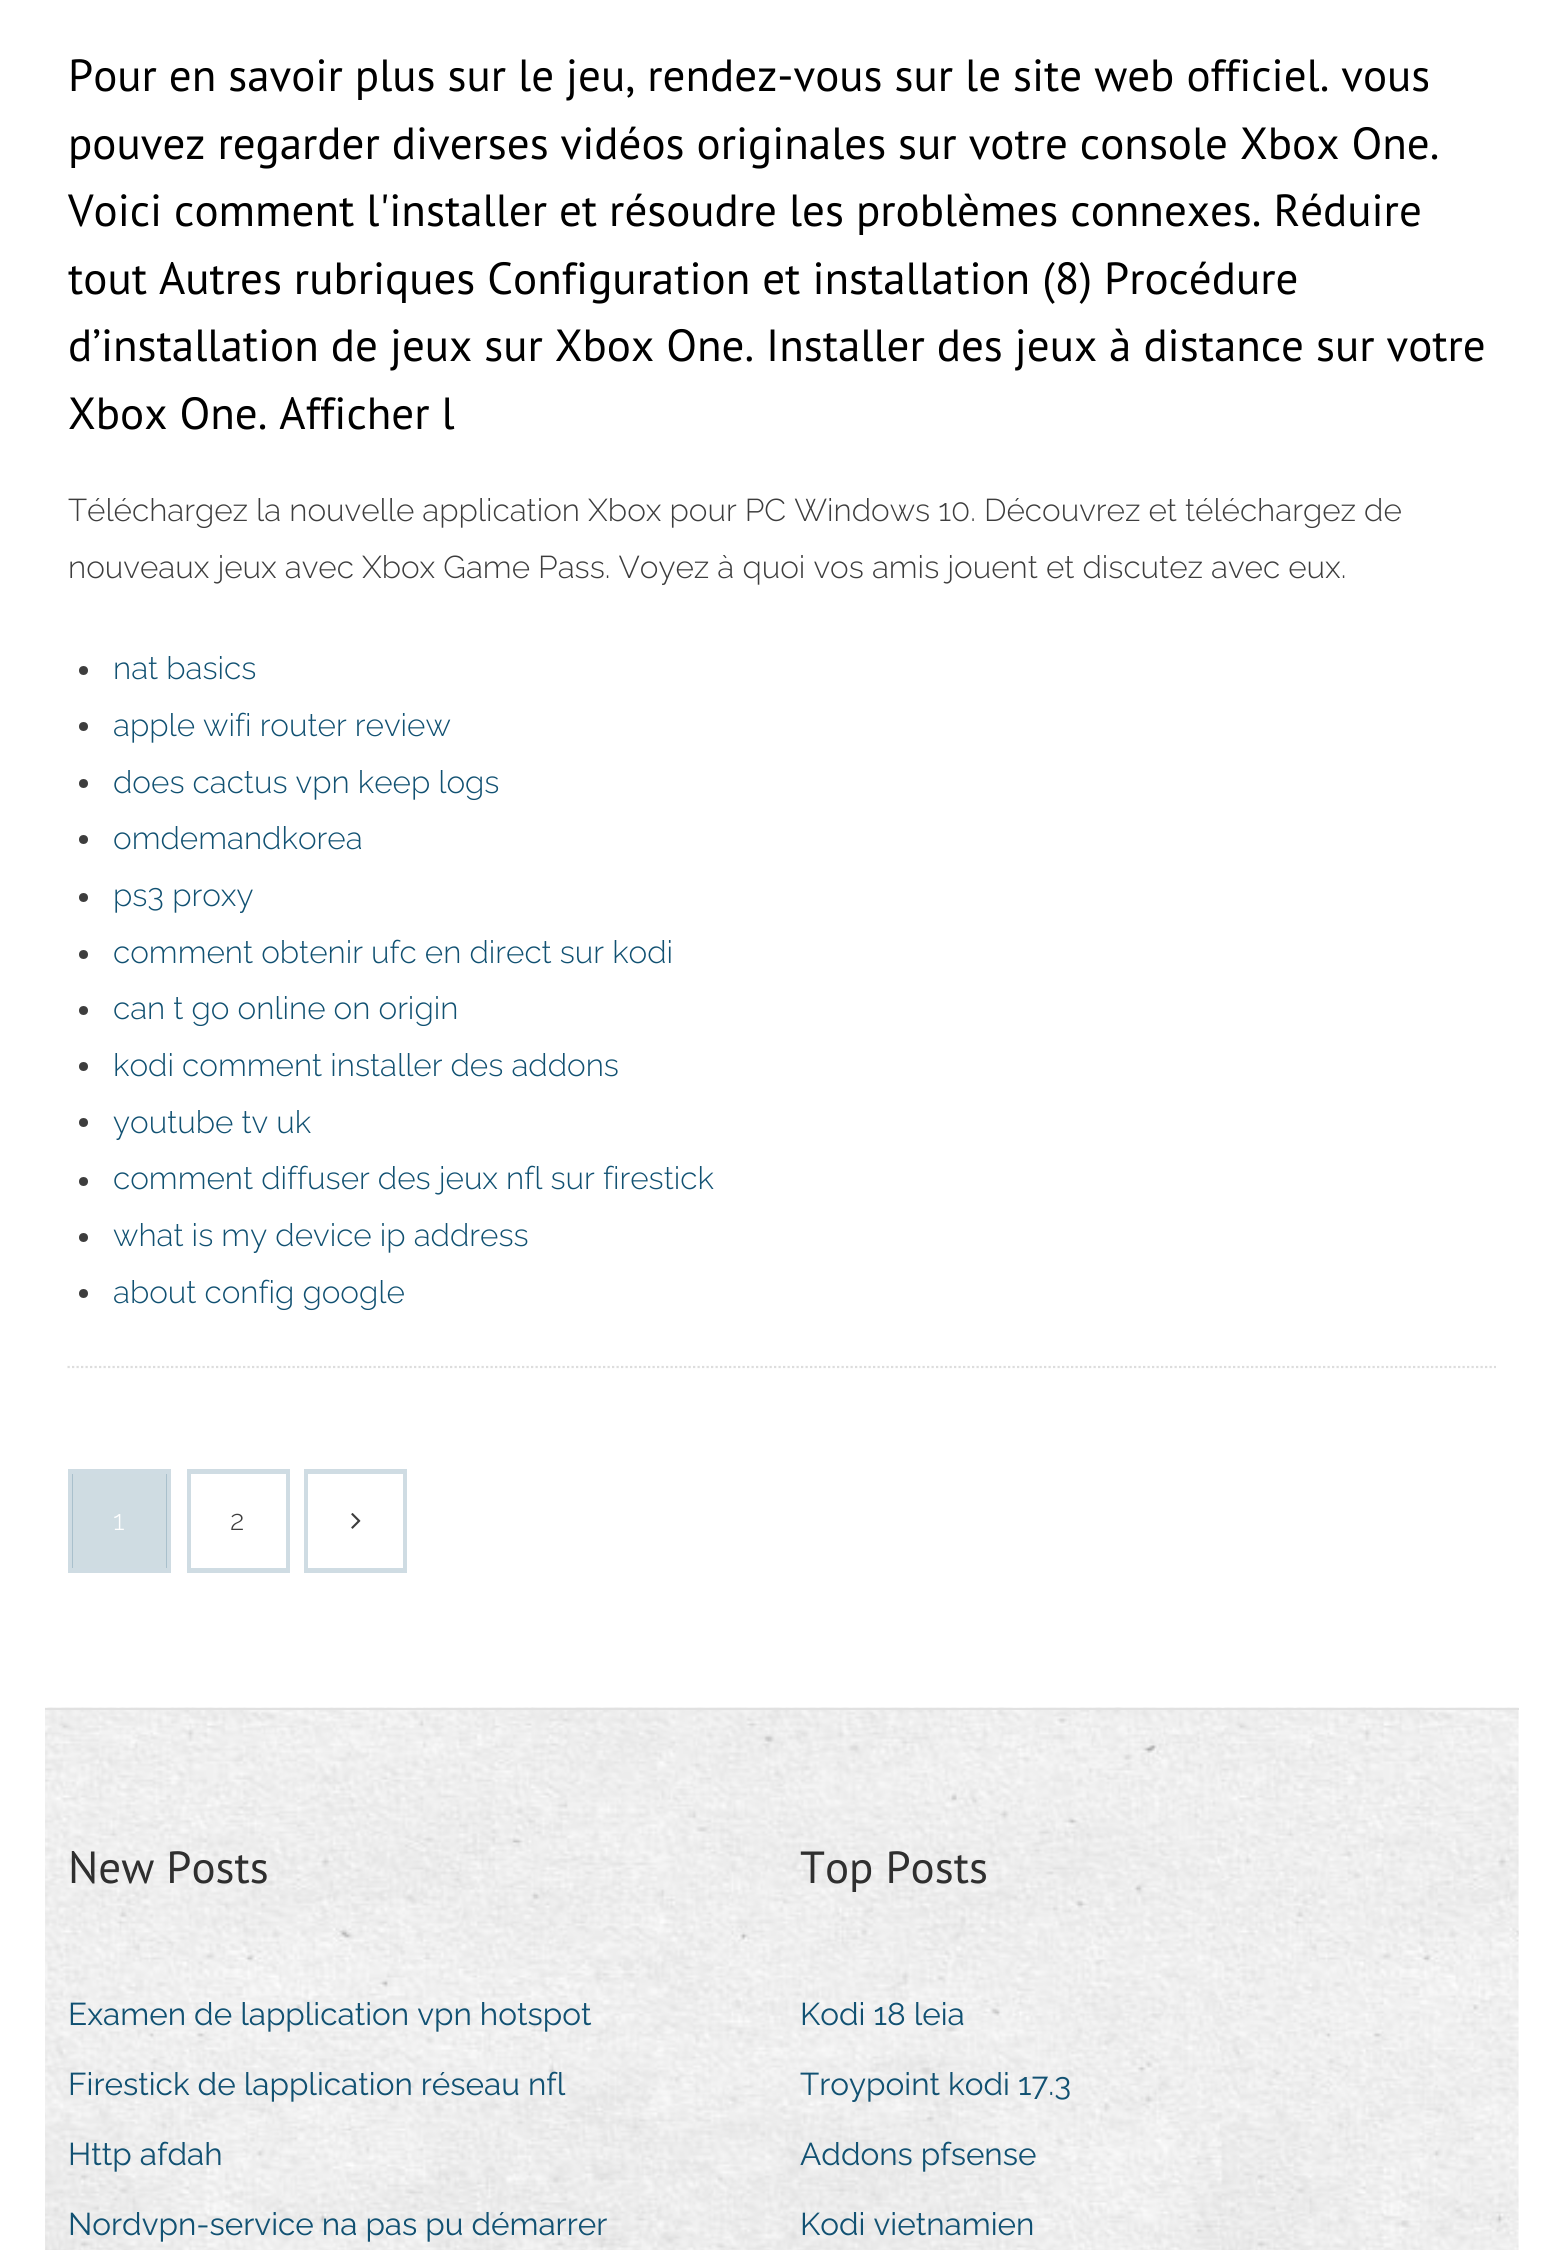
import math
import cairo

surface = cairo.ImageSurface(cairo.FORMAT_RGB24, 1563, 2250)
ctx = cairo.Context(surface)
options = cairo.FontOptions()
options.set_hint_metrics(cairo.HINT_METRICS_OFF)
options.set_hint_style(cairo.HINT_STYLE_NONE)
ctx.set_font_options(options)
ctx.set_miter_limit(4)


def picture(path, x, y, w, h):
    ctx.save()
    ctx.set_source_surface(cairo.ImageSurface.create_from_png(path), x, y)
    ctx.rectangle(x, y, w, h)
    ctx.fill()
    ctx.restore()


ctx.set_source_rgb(1, 1, 1)
ctx.paint()
ctx.new_path()
ctx.move_to(67.5, 1367)
ctx.line_to(1496, 1367)
ctx.set_source_rgb(0.867, 0.867, 0.867)
ctx.set_line_width(2.2)
ctx.set_dash([2.25, 2.25])
ctx.stroke()
ctx.select_font_face("PT Sans")
ctx.set_font_size(45)
ctx.set_source_rgb(0, 0, 0)
ctx.move_to(68, 91)
ctx.show_text("Pour en savoir plus sur le jeu, rendez-vous sur le site web officiel. vous")
ctx.move_to(68, 159)
ctx.show_text("pouvez regarder diverses vidéos originales sur votre console Xbox One.")
ctx.move_to(68, 226)
ctx.show_text("Voici comment l'installer et résoudre les problèmes connexes. Réduire")
ctx.move_to(68, 294)
ctx.show_text("tout Autres rubriques Configuration et installation (8) Procédure")
ctx.move_to(68, 361)
ctx.show_text("d’installation de jeux sur Xbox One. Installer des jeux à distance sur votre")
ctx.move_to(68, 429)
ctx.show_text("Xbox One. Afficher l")
ctx.select_font_face("Raleway Light")
ctx.set_font_size(31.5)
ctx.set_source_rgb(0.239, 0.239, 0.239)
ctx.move_to(68, 521)
ctx.show_text("Téléchargez la nouvelle application Xbox pour PC Windows 10. Découvrez et téléchargez de")
ctx.move_to(68, 578)
ctx.show_text("nouveaux jeux avec Xbox Game Pass. Voyez à quoi vos amis jouent et discutez avec eux.")
ctx.new_path()
ctx.arc(83.5, 670.5, 4.5, 0, 2 * math.pi)
ctx.fill()
ctx.set_source_rgb(0.067, 0.318, 0.447)
ctx.move_to(113, 679)
ctx.show_text("nat basics")
ctx.set_source_rgb(0.239, 0.239, 0.239)
ctx.new_path()
ctx.arc(83.5, 726.5, 4.5, 0, 2 * math.pi)
ctx.fill()
ctx.set_source_rgb(0.067, 0.318, 0.447)
ctx.move_to(113, 736)
ctx.show_text("apple wifi router review")
ctx.set_source_rgb(0.239, 0.239, 0.239)
ctx.new_path()
ctx.arc(83.5, 783.5, 4.5, 0, 2 * math.pi)
ctx.fill()
ctx.set_source_rgb(0.067, 0.318, 0.447)
ctx.move_to(113, 793)
ctx.show_text("does cactus vpn keep logs")
ctx.set_source_rgb(0.239, 0.239, 0.239)
ctx.new_path()
ctx.arc(83.5, 839.5, 4.5, 0, 2 * math.pi)
ctx.fill()
ctx.set_source_rgb(0.067, 0.318, 0.447)
ctx.move_to(113, 849)
ctx.show_text("omdemandkorea")
ctx.set_source_rgb(0.239, 0.239, 0.239)
ctx.new_path()
ctx.arc(83.5, 897.5, 4.5, 0, 2 * math.pi)
ctx.fill()
ctx.set_source_rgb(0.067, 0.318, 0.447)
ctx.move_to(113, 906)
ctx.show_text("ps3 proxy")
ctx.set_source_rgb(0.239, 0.239, 0.239)
ctx.new_path()
ctx.arc(83.5, 954.5, 4.5, 0, 2 * math.pi)
ctx.fill()
ctx.set_source_rgb(0.067, 0.318, 0.447)
ctx.move_to(113, 963)
ctx.show_text("comment obtenir ufc en direct sur kodi")
ctx.set_source_rgb(0.239, 0.239, 0.239)
ctx.new_path()
ctx.arc(83.5, 1010.5, 4.5, 0, 2 * math.pi)
ctx.fill()
ctx.set_source_rgb(0.067, 0.318, 0.447)
ctx.move_to(113, 1019)
ctx.show_text("can t go online on origin")
ctx.set_source_rgb(0.239, 0.239, 0.239)
ctx.new_path()
ctx.arc(83.5, 1066.5, 4.5, 0, 2 * math.pi)
ctx.fill()
ctx.set_source_rgb(0.067, 0.318, 0.447)
ctx.move_to(113, 1076)
ctx.show_text("kodi comment installer des addons")
ctx.set_source_rgb(0.239, 0.239, 0.239)
ctx.new_path()
ctx.arc(83.5, 1122.5, 4.5, 0, 2 * math.pi)
ctx.fill()
ctx.set_source_rgb(0.067, 0.318, 0.447)
ctx.move_to(113, 1133)
ctx.show_text("youtube tv uk")
ctx.set_source_rgb(0.239, 0.239, 0.239)
ctx.new_path()
ctx.arc(83.5, 1181.5, 4.5, 0, 2 * math.pi)
ctx.fill()
ctx.set_source_rgb(0.067, 0.318, 0.447)
ctx.move_to(113, 1189)
ctx.show_text("comment diffuser des jeux nfl sur firestick")
ctx.set_source_rgb(0.239, 0.239, 0.239)
ctx.new_path()
ctx.arc(83.5, 1237.5, 4.5, 0, 2 * math.pi)
ctx.fill()
ctx.set_source_rgb(0.067, 0.318, 0.447)
ctx.move_to(113, 1246)
ctx.show_text("what is my device ip address")
ctx.set_source_rgb(0.239, 0.239, 0.239)
ctx.new_path()
ctx.arc(83.5, 1293.5, 4.5, 0, 2 * math.pi)
ctx.fill()
ctx.set_source_rgb(0.067, 0.318, 0.447)
ctx.move_to(113, 1303)
ctx.show_text("about config google")
ctx.rectangle(70.5, 1471.5, 98, 99)
ctx.set_source_rgb(0.812, 0.863, 0.89)
ctx.set_line_width(5)
ctx.set_dash([])
ctx.stroke()
ctx.set_source_rgba(0.067, 0.318, 0.447, 0.2)
ctx.rectangle(72, 1474, 95, 94)
ctx.fill()
ctx.set_font_size(28)
ctx.set_source_rgb(1, 1, 1)
ctx.move_to(113, 1530)
ctx.show_text("1")
ctx.rectangle(189.5, 1471.5, 98, 99)
ctx.set_source_rgb(0.812, 0.863, 0.89)
ctx.stroke()
ctx.set_source_rgb(1, 1, 1)
ctx.rectangle(191, 1474, 95, 94)
ctx.fill()
ctx.set_source_rgb(0.239, 0.239, 0.239)
ctx.move_to(230, 1530)
ctx.show_text("2")
ctx.rectangle(306.5, 1471.5, 98, 99)
ctx.set_source_rgb(0.812, 0.863, 0.89)
ctx.stroke()
ctx.set_source_rgb(1, 1, 1)
ctx.rectangle(308, 1474, 95, 94)
ctx.fill()
picture("img1.png", 351, 1513, 10, 16)
picture("img2.png", 45, 1707, 1474, 543)
ctx.set_source_rgb(0.882, 0.882, 0.882)
ctx.rectangle(45, 1708, 1474, 2)
ctx.fill()
ctx.select_font_face("PT Sans")
ctx.set_font_size(45)
ctx.set_source_rgb(0.184, 0.184, 0.184)
ctx.move_to(68, 1883)
ctx.show_text("New Posts")
ctx.select_font_face("Raleway")
ctx.set_font_size(31.5)
ctx.set_source_rgb(0.067, 0.318, 0.447)
ctx.move_to(68, 2025)
ctx.show_text("Examen de lapplication vpn hotspot")
ctx.move_to(68, 2095)
ctx.show_text("Firestick de lapplication réseau nfl")
ctx.move_to(68, 2165)
ctx.show_text("Http afdah")
ctx.move_to(68, 2235)
ctx.show_text("Nordvpn-service na pas pu démarrer")
ctx.select_font_face("PT Sans")
ctx.set_font_size(45)
ctx.set_source_rgb(0.184, 0.184, 0.184)
ctx.move_to(800, 1883)
ctx.show_text("Top Posts")
ctx.select_font_face("Raleway")
ctx.set_font_size(31.5)
ctx.set_source_rgb(0.067, 0.318, 0.447)
ctx.move_to(800, 2025)
ctx.show_text("Kodi 18 leia")
ctx.move_to(800, 2095)
ctx.show_text("Troypoint kodi 17.3")
ctx.move_to(800, 2165)
ctx.show_text("Addons pfsense")
ctx.move_to(800, 2235)
ctx.show_text("Kodi vietnamien")
surface.write_to_png("page.png")
